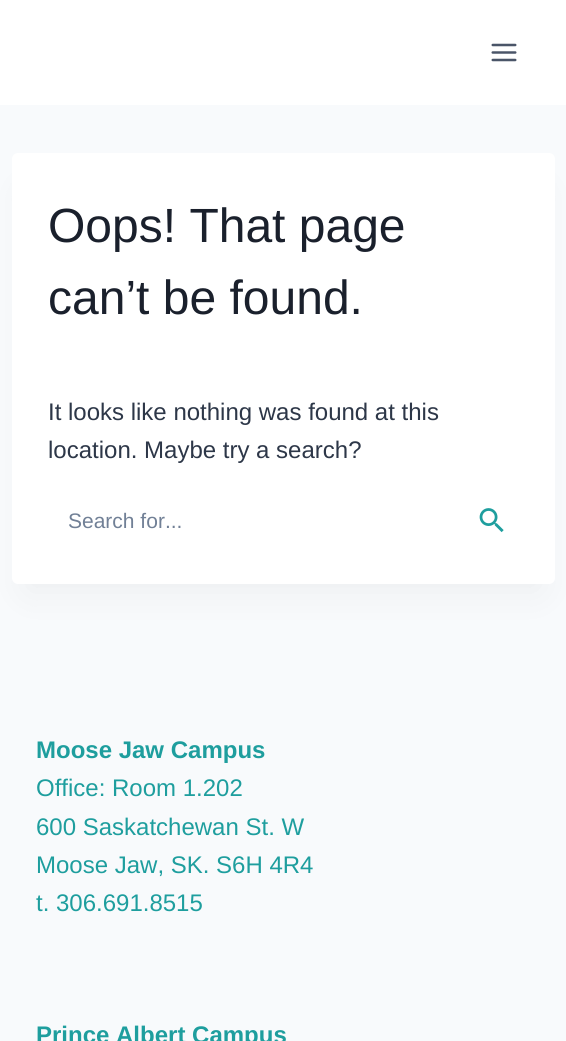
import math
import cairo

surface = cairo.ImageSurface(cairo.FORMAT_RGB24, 566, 1041)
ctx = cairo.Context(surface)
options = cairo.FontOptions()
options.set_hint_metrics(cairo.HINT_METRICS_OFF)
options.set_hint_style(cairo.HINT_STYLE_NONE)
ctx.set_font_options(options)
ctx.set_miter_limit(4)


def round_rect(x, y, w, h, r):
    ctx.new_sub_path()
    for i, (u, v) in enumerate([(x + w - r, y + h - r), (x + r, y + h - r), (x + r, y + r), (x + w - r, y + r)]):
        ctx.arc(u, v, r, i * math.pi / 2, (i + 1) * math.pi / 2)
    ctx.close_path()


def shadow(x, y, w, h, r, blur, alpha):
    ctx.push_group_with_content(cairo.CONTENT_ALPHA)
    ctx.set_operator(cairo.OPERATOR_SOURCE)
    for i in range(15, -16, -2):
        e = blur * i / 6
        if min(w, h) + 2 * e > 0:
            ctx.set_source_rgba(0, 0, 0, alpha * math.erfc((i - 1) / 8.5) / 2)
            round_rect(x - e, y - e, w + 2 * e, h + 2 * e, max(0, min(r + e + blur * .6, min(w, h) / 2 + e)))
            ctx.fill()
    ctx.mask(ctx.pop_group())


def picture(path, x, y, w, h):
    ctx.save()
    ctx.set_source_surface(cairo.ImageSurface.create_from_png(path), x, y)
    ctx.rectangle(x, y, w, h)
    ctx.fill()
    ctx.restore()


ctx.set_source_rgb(0.969, 0.98, 0.988)
ctx.paint()
ctx.set_source_rgb(1, 1, 1)
ctx.rectangle(0, 0, 566, 105)
ctx.fill()
picture("img1.png", 491, 43, 26, 19)
ctx.set_source_rgb(0, 0, 0)
shadow(27, 191, 513, 400, 0, 19, 0.05)
ctx.set_source_rgb(1, 1, 1)
round_rect(12, 153, 543, 431, 6)
ctx.fill()
ctx.select_font_face("Liberation Sans")
ctx.set_font_size(48)
ctx.set_source_rgb(0.102, 0.125, 0.173)
ctx.move_to(48, 242)
ctx.show_text("Oops! That page")
ctx.move_to(48, 314)
ctx.show_text("can’t be found.")
ctx.set_font_size(24)
ctx.set_source_rgb(0.176, 0.216, 0.282)
ctx.move_to(48, 420)
ctx.show_text("It looks like nothing was found at this")
ctx.move_to(48, 458)
ctx.show_text("location. Maybe try a search?")
ctx.set_font_size(21)
ctx.set_source_rgb(0.443, 0.502, 0.588)
ctx.move_to(68, 528)
ctx.show_text("Search for...")
picture("img2.png", 479, 508, 25, 25)
ctx.select_font_face("Liberation Sans", cairo.FONT_SLANT_NORMAL, cairo.FONT_WEIGHT_BOLD)
ctx.set_font_size(24)
ctx.set_source_rgb(0.118, 0.62, 0.62)
ctx.move_to(36, 758)
ctx.show_text("Moose Jaw Campus")
ctx.select_font_face("Liberation Sans")
ctx.move_to(36, 796)
ctx.show_text("Office: Room 1.202")
ctx.move_to(36, 835)
ctx.show_text("600 Saskatchewan St. W")
ctx.move_to(36, 873)
ctx.show_text("Moose Jaw, SK. S6H 4R4")
ctx.move_to(36, 911)
ctx.show_text("t. 306.691.8515")
ctx.select_font_face("Liberation Sans", cairo.FONT_SLANT_NORMAL, cairo.FONT_WEIGHT_BOLD)
ctx.move_to(36, 1043)
ctx.show_text("Prince Albert Campus")
surface.write_to_png("page.png")
